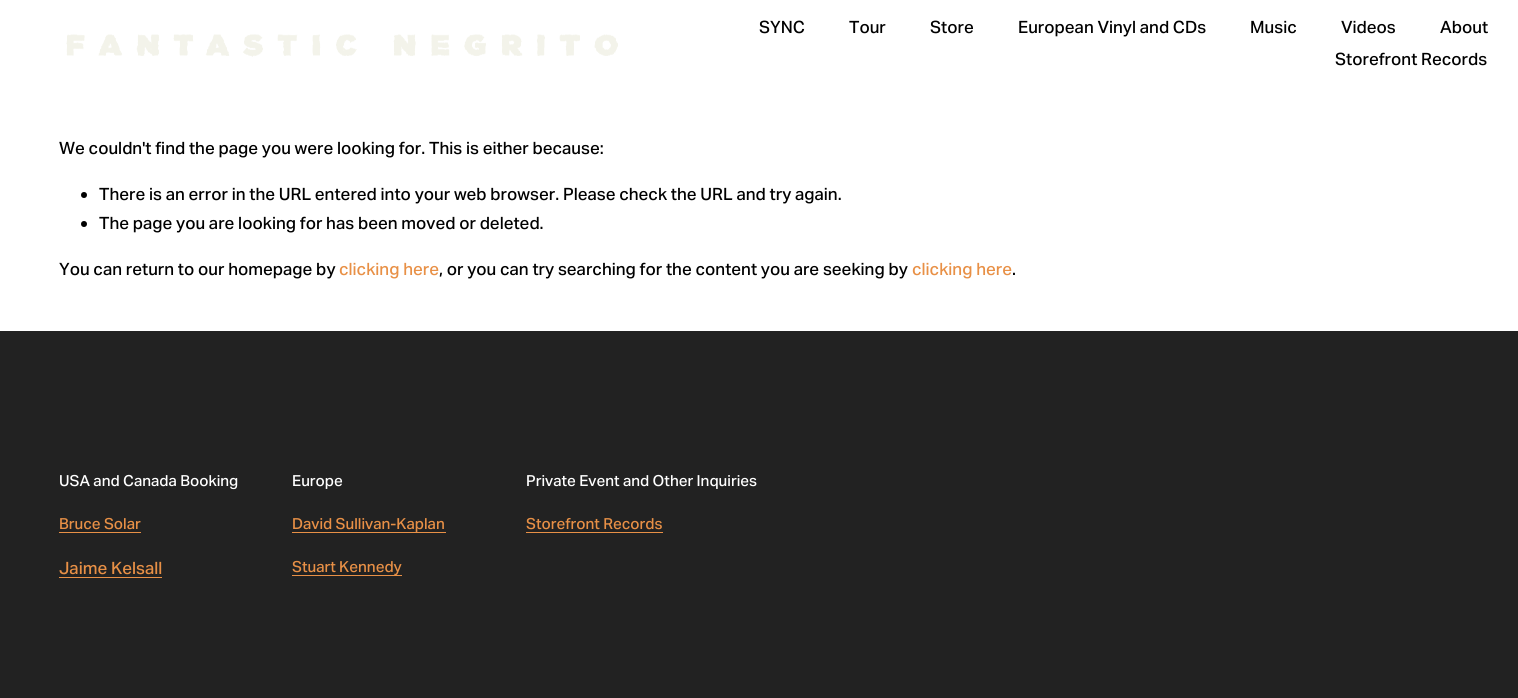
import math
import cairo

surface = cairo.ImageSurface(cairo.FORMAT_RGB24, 1518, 698)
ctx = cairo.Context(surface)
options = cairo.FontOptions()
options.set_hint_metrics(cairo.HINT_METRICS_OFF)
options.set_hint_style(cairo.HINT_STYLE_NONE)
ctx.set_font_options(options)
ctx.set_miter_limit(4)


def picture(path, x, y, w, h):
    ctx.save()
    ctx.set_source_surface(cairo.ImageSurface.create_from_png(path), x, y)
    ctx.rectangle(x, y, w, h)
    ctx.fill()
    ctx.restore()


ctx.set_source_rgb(1, 1, 1)
ctx.paint()
picture("img1.png", 66, 34, 552, 23)
ctx.select_font_face("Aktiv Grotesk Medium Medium")
ctx.set_font_size(17)
ctx.set_source_rgb(0, 0, 0)
ctx.move_to(759, 33)
ctx.show_text("SYNC")
ctx.move_to(849, 33)
ctx.show_text("Tour")
ctx.move_to(930, 33)
ctx.show_text("Store")
ctx.move_to(1018, 33)
ctx.show_text("European Vinyl and CDs")
ctx.move_to(1250, 33)
ctx.show_text("Music")
ctx.move_to(1341, 33)
ctx.show_text("Videos")
ctx.move_to(1440, 33)
ctx.show_text("About")
ctx.move_to(1335, 65)
ctx.show_text("Storefront Records")
ctx.move_to(59, 154)
ctx.show_text("We couldn't find the page you were looking for. This is either because:")
ctx.new_path()
ctx.arc(84, 195, 3, 0, 2 * math.pi)
ctx.fill()
ctx.move_to(99, 200)
ctx.show_text("There is an error in the URL entered into your web browser. Please check the URL and try again.")
ctx.new_path()
ctx.arc(84, 224, 3, 0, 2 * math.pi)
ctx.fill()
ctx.move_to(99, 229)
ctx.show_text("The page you are looking for has been moved or deleted.")
ctx.move_to(59, 275)
ctx.show_text("You can return to our homepage by")
ctx.set_source_rgb(0.91, 0.565, 0.275)
ctx.move_to(339, 275)
ctx.show_text("clicking here")
ctx.set_source_rgb(0, 0, 0)
ctx.move_to(439, 275)
ctx.show_text(", or you can try searching for the content you are seeking by")
ctx.set_source_rgb(0.91, 0.565, 0.275)
ctx.move_to(912, 275)
ctx.show_text("clicking here")
ctx.set_source_rgb(0, 0, 0)
ctx.move_to(1012, 275)
ctx.show_text(".")
ctx.set_source_rgb(0.133, 0.133, 0.133)
ctx.rectangle(0, 331, 1518, 367)
ctx.fill()
ctx.set_font_size(15.25)
ctx.set_source_rgb(1, 1, 1)
ctx.move_to(59, 486)
ctx.show_text("USA and Canada Booking")
ctx.set_source_rgb(0.91, 0.565, 0.275)
ctx.move_to(59, 529)
ctx.show_text("Bruce Solar")
ctx.rectangle(59, 532, 82, 1)
ctx.fill()
ctx.set_font_size(17)
ctx.move_to(59, 574)
ctx.show_text("Jaime Kelsall")
ctx.rectangle(59, 577, 103, 1)
ctx.fill()
ctx.set_font_size(15.25)
ctx.set_source_rgb(1, 1, 1)
ctx.move_to(292, 486)
ctx.show_text("Europe")
ctx.set_source_rgb(0.91, 0.565, 0.275)
ctx.move_to(292, 529)
ctx.show_text("David Sullivan-Kaplan")
ctx.rectangle(292, 532, 154, 1)
ctx.fill()
ctx.rectangle(292, 575, 110, 1)
ctx.fill()
ctx.move_to(292, 572)
ctx.show_text("Stuart Kennedy")
ctx.set_source_rgb(1, 1, 1)
ctx.move_to(526, 486)
ctx.show_text("Private Event and Other Inquiries")
ctx.set_source_rgb(0.91, 0.565, 0.275)
ctx.move_to(526, 529)
ctx.show_text("Storefront Records")
ctx.rectangle(526, 532, 137, 1)
ctx.fill()
surface.write_to_png("page.png")
